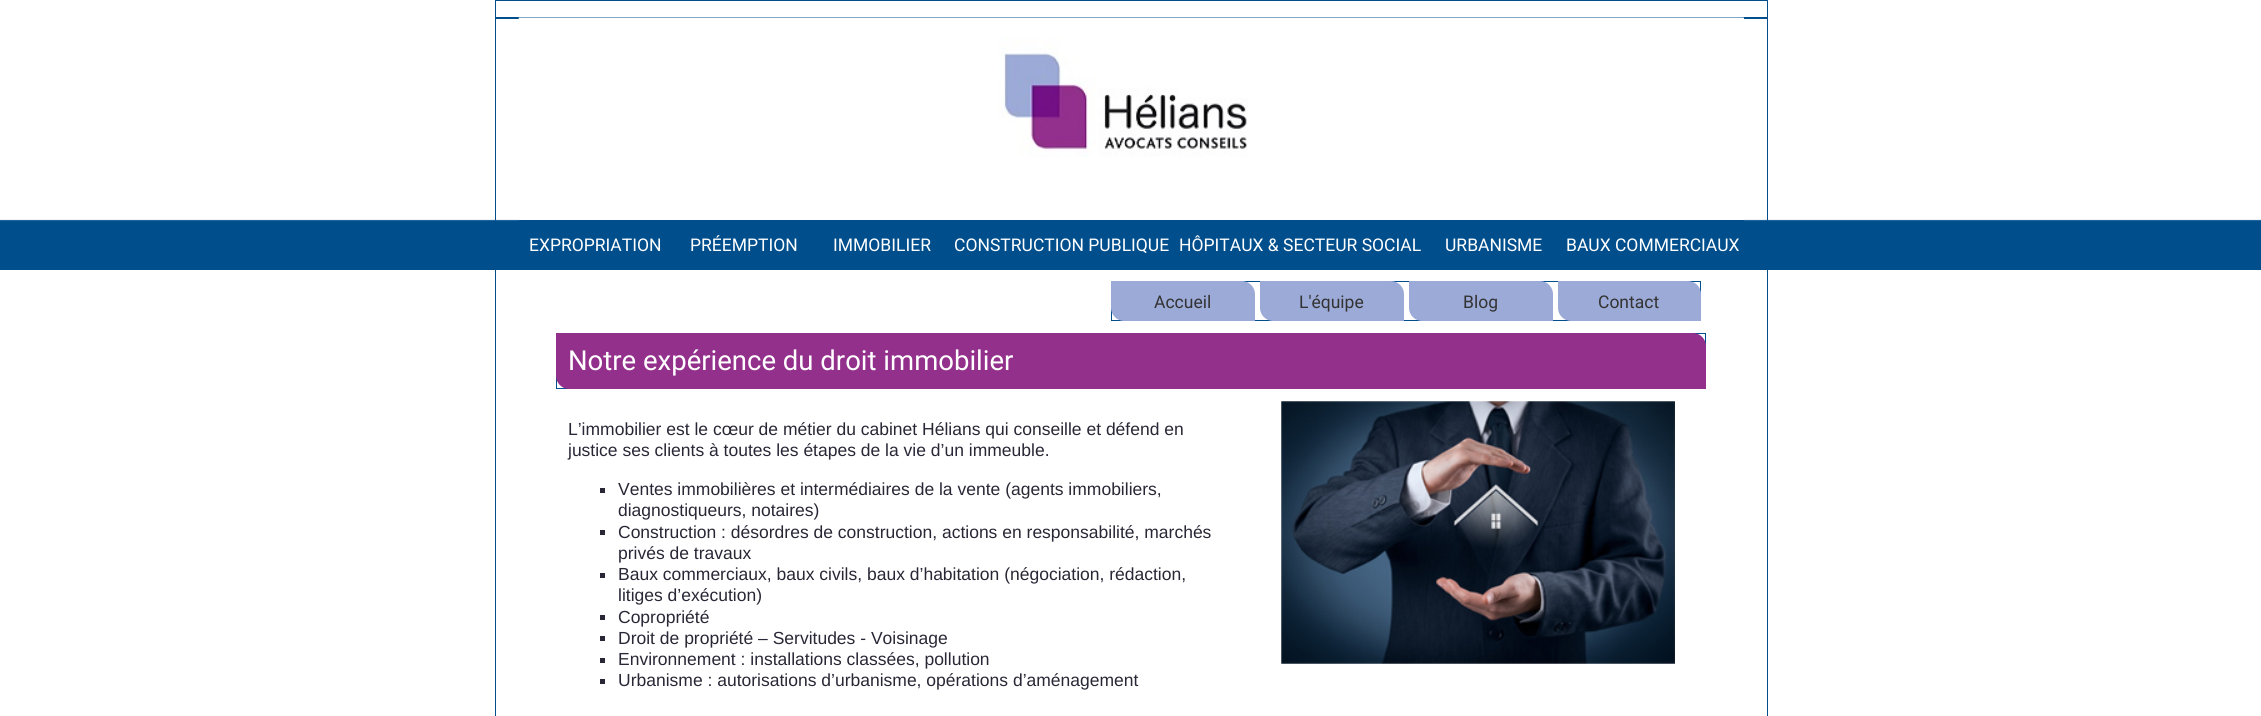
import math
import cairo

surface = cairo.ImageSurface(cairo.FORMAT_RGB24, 2261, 716)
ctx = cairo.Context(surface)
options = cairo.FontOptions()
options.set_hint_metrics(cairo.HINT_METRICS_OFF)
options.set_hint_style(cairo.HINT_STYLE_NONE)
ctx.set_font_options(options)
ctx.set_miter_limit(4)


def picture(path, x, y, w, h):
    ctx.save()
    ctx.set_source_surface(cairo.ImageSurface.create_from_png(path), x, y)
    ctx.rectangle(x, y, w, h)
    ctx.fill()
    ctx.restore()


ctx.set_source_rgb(1, 1, 1)
ctx.paint()
picture("img1.png", 0, 219, 2261, 51)
ctx.rectangle(495.5, 0.5, 1272, 17)
ctx.set_source_rgb(0, 0.306, 0.549)
ctx.set_line_width(1)
ctx.stroke()
ctx.rectangle(495.5, 18.5, 1272, 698)
ctx.stroke()
ctx.set_source_rgb(1, 1, 1)
ctx.rectangle(519, 18, 1225, 252)
ctx.fill()
picture("img2.png", 518, 17, 1226, 140)
ctx.set_source_rgb(0, 0.306, 0.549)
ctx.rectangle(519, 220, 1225, 50)
ctx.fill()
ctx.select_font_face("Roboto")
ctx.set_font_size(17.5)
ctx.set_source_rgb(1, 1, 1)
ctx.move_to(529, 251)
ctx.show_text("EXPROPRIATION")
ctx.move_to(690, 251)
ctx.show_text("PRÉEMPTION")
ctx.move_to(833, 251)
ctx.show_text("IMMOBILIER")
ctx.move_to(954, 251)
ctx.show_text("CONSTRUCTION PUBLIQUE")
ctx.move_to(1179, 251)
ctx.show_text("HÔPITAUX & SECTEUR SOCIAL")
ctx.move_to(1445, 251)
ctx.show_text("URBANISME")
ctx.move_to(1566, 251)
ctx.show_text("BAUX COMMERCIAUX")
ctx.rectangle(1111.5, 281.5, 589, 39)
ctx.set_source_rgb(0, 0.306, 0.549)
ctx.stroke()
ctx.set_source_rgb(0.612, 0.667, 0.843)
ctx.new_path()
ctx.move_to(1111, 281)
ctx.line_to(1242, 281)
ctx.curve_to(1249, 281, 1255, 287, 1255, 294)
ctx.line_to(1255, 321)
ctx.line_to(1124, 321)
ctx.curve_to(1117, 321, 1111, 315, 1111, 308)
ctx.close_path()
ctx.fill()
ctx.set_source_rgb(0.2, 0.2, 0.2)
ctx.move_to(1154, 308)
ctx.show_text("Accueil")
ctx.set_source_rgb(0.612, 0.667, 0.843)
ctx.new_path()
ctx.move_to(1260, 281)
ctx.line_to(1391, 281)
ctx.curve_to(1398, 281, 1404, 287, 1404, 294)
ctx.line_to(1404, 321)
ctx.line_to(1273, 321)
ctx.curve_to(1266, 321, 1260, 315, 1260, 308)
ctx.close_path()
ctx.fill()
ctx.set_source_rgb(0.2, 0.2, 0.2)
ctx.move_to(1299, 308)
ctx.show_text("L'équipe")
ctx.set_source_rgb(0.612, 0.667, 0.843)
ctx.new_path()
ctx.move_to(1409, 281)
ctx.line_to(1540, 281)
ctx.curve_to(1547, 281, 1553, 287, 1553, 294)
ctx.line_to(1553, 321)
ctx.line_to(1422, 321)
ctx.curve_to(1415, 321, 1409, 315, 1409, 308)
ctx.close_path()
ctx.fill()
ctx.set_source_rgb(0.2, 0.2, 0.2)
ctx.move_to(1463, 308)
ctx.show_text("Blog")
ctx.set_source_rgb(0.612, 0.667, 0.843)
ctx.new_path()
ctx.move_to(1558, 281)
ctx.line_to(1688, 281)
ctx.curve_to(1695, 281, 1701, 287, 1701, 294)
ctx.line_to(1701, 321)
ctx.line_to(1571, 321)
ctx.curve_to(1564, 321, 1558, 315, 1558, 308)
ctx.close_path()
ctx.fill()
ctx.set_source_rgb(0.2, 0.2, 0.2)
ctx.move_to(1598, 308)
ctx.show_text("Contact")
ctx.rectangle(556.5, 333.5, 1149, 55)
ctx.set_source_rgb(0, 0.306, 0.549)
ctx.stroke()
ctx.set_source_rgb(0.576, 0.188, 0.549)
ctx.new_path()
ctx.move_to(556, 333)
ctx.line_to(1693, 333)
ctx.curve_to(1700, 333, 1706, 339, 1706, 346)
ctx.line_to(1706, 389)
ctx.line_to(569, 389)
ctx.curve_to(562, 389, 556, 383, 556, 376)
ctx.close_path()
ctx.fill()
ctx.set_font_size(27.5)
ctx.set_source_rgb(1, 1, 1)
ctx.move_to(568, 370)
ctx.show_text("Notre expérience du droit immobilier")
ctx.select_font_face("Liberation Sans")
ctx.set_font_size(17.5)
ctx.set_source_rgb(0.161, 0.153, 0.208)
ctx.move_to(568, 435)
ctx.show_text("L’immobilier est le cœur de métier du cabinet Hélians qui conseille et défend en")
ctx.move_to(568, 456)
ctx.show_text("justice ses clients à toutes les étapes de la vie d’un immeuble.")
ctx.rectangle(600, 488, 5, 5)
ctx.fill()
ctx.move_to(618, 495)
ctx.show_text("Ventes immobilières et intermédiaires de la vente (agents immobiliers,")
ctx.move_to(618, 516)
ctx.show_text("diagnostiqueurs, notaires)")
ctx.rectangle(600, 530, 5, 5)
ctx.fill()
ctx.move_to(618, 538)
ctx.show_text("Construction : désordres de construction, actions en responsabilité, marchés")
ctx.move_to(618, 559)
ctx.show_text("privés de travaux")
ctx.rectangle(600, 573, 5, 5)
ctx.fill()
ctx.move_to(618, 580)
ctx.show_text("Baux commerciaux, baux civils, baux d’habitation (négociation, rédaction,")
ctx.move_to(618, 601)
ctx.show_text("litiges d’exécution)")
ctx.rectangle(600, 615, 5, 5)
ctx.fill()
ctx.move_to(618, 623)
ctx.show_text("Copropriété")
ctx.rectangle(600, 636, 5, 5)
ctx.fill()
ctx.move_to(618, 644)
ctx.show_text("Droit de propriété – Servitudes - Voisinage")
ctx.rectangle(600, 658, 5, 5)
ctx.fill()
ctx.move_to(618, 665)
ctx.show_text("Environnement : installations classées, pollution")
ctx.rectangle(600, 679, 5, 5)
ctx.fill()
ctx.move_to(618, 686)
ctx.show_text("Urbanisme : autorisations d’urbanisme, opérations d’aménagement")
picture("img3.png", 1281, 401, 394, 263)
surface.write_to_png("page.png")
